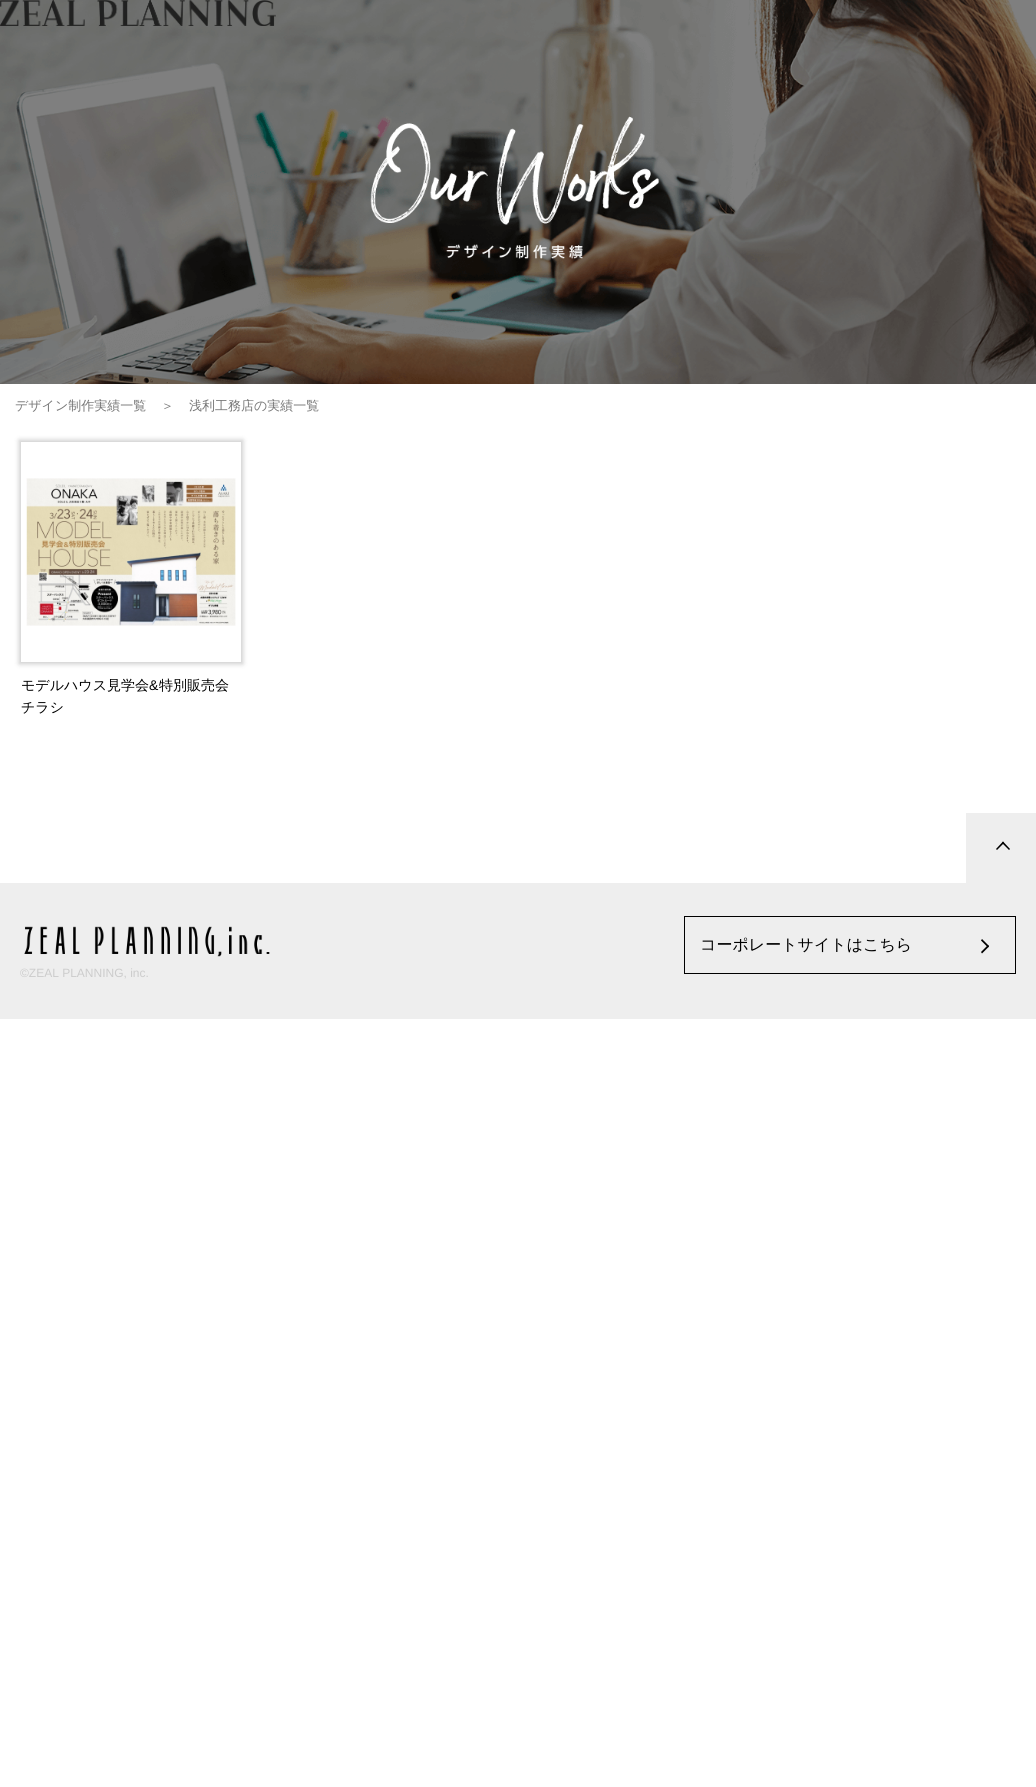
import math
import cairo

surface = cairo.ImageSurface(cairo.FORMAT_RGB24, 1036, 1787)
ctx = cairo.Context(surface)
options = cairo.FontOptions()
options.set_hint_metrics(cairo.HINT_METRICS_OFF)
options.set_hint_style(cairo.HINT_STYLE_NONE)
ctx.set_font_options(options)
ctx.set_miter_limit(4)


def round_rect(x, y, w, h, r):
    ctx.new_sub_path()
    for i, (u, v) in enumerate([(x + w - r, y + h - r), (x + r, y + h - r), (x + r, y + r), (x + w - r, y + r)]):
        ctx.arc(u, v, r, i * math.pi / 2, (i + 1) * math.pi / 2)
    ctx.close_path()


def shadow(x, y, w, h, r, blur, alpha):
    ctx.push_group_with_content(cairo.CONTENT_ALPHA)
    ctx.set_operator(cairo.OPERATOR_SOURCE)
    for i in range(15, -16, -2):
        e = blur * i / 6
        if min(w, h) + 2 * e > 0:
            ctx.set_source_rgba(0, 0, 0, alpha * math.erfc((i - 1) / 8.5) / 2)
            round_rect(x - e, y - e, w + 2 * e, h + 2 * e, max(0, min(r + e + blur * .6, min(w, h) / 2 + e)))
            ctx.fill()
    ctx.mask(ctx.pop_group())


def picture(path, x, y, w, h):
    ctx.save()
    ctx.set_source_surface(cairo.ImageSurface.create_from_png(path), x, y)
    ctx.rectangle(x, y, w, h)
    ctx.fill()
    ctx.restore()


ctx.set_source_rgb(1, 1, 1)
ctx.paint()
picture("img2.png", 0, 0, 1036, 384)
picture("img1.png", 0, 0, 276, 26)
picture("img3.png", 370, 116, 290, 143)
ctx.select_font_face("WenQuanYi Zen Hei Medium")
ctx.set_font_size(13)
ctx.set_source_rgb(0.467, 0.467, 0.467)
ctx.move_to(15, 410)
ctx.show_text("デザイン制作実績一覧")
ctx.move_to(161, 410)
ctx.show_text("＞")
ctx.move_to(189, 410)
ctx.show_text("浅利工務店の実績一覧")
ctx.save()
ctx.set_fill_rule(cairo.FILL_RULE_EVEN_ODD)
ctx.new_path()
ctx.move_to(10, 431)
ctx.line_to(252, 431)
ctx.line_to(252, 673)
ctx.line_to(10, 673)
ctx.close_path()
ctx.move_to(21, 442)
ctx.line_to(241, 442)
ctx.line_to(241, 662)
ctx.line_to(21, 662)
ctx.close_path()
ctx.clip()
ctx.set_source_rgb(0, 0, 0)
shadow(19, 440, 224, 224, 0, 2.5, 0.2)
ctx.restore()
picture("img4.png", 25, 478, 211, 148)
ctx.set_font_size(14)
ctx.set_source_rgb(0, 0, 0)
ctx.move_to(21, 690)
ctx.show_text("モデルハウス見学会")
ctx.select_font_face("Liberation Sans")
ctx.move_to(149, 690)
ctx.show_text("&")
ctx.select_font_face("WenQuanYi Zen Hei Medium")
ctx.move_to(159, 690)
ctx.show_text("特別販売会")
ctx.move_to(21, 712)
ctx.show_text("チラシ")
ctx.set_source_rgb(0.933, 0.933, 0.933)
ctx.rectangle(0, 883, 1036, 136)
ctx.fill()
ctx.rectangle(966, 813, 70, 70)
ctx.fill()
ctx.set_source_rgb(0, 0, 0)
ctx.new_path()
ctx.move_to(1003, 841.5)
ctx.line_to(1010, 849)
ctx.line_to(1009, 850)
ctx.line_to(1002, 843)
ctx.close_path()
ctx.fill()
ctx.new_path()
ctx.move_to(996, 849)
ctx.line_to(1003, 841.5)
ctx.line_to(1004, 843)
ctx.line_to(997, 850)
ctx.close_path()
ctx.fill()
picture("img5.png", 24, 926, 246, 31)
ctx.rectangle(684.5, 916.5, 331, 57)
ctx.set_line_width(1)
ctx.stroke()
ctx.set_font_size(16)
ctx.move_to(700, 950)
ctx.show_text("コーポレートサイトはこちら")
ctx.new_path()
ctx.move_to(982, 939)
ctx.line_to(989, 946)
ctx.line_to(988, 947.5)
ctx.line_to(981, 940.5)
ctx.close_path()
ctx.fill()
ctx.new_path()
ctx.move_to(981, 952)
ctx.line_to(988, 945)
ctx.line_to(989, 946.5)
ctx.line_to(982, 953.5)
ctx.close_path()
ctx.fill()
ctx.select_font_face("Liberation Sans")
ctx.set_font_size(12)
ctx.set_source_rgb(0.8, 0.8, 0.8)
ctx.move_to(20, 977)
ctx.show_text("©ZEAL PLANNING, inc.")
surface.write_to_png("page.png")
